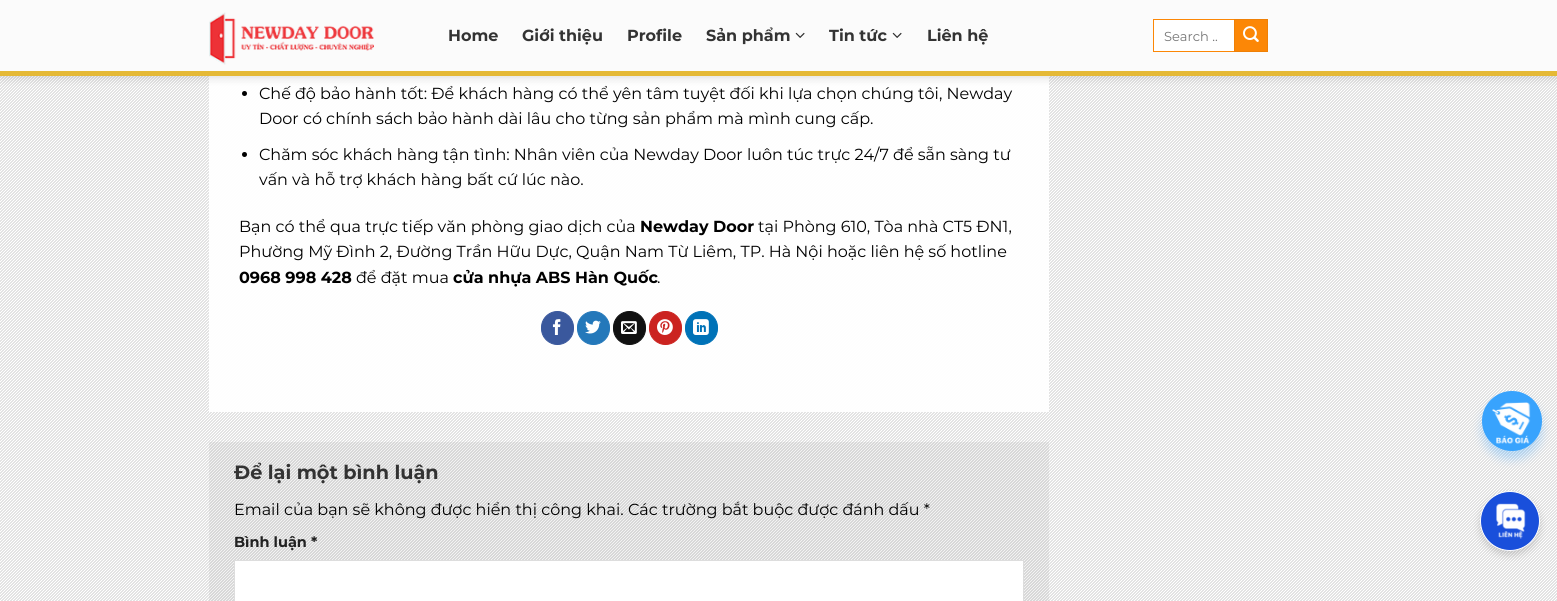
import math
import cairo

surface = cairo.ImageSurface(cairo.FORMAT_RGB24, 1557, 601)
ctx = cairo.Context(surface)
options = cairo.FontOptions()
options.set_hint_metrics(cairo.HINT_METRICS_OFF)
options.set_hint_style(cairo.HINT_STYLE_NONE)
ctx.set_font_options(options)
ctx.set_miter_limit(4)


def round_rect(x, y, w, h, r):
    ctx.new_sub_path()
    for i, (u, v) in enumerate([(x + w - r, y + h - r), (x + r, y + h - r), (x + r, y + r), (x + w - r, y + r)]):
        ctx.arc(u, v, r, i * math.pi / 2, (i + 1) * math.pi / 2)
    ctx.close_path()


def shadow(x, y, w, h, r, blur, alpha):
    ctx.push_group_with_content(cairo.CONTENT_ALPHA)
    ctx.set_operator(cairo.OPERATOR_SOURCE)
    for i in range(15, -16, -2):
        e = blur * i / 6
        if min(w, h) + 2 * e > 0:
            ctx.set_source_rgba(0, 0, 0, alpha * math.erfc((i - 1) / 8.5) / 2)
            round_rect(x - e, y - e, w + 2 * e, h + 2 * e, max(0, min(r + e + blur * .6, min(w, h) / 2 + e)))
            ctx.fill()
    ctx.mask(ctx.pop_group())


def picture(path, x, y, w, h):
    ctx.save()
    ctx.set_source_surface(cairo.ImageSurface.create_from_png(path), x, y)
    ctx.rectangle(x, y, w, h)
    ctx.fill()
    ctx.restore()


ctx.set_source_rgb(1, 1, 1)
ctx.paint()
picture("img4.png", 0, 76, 1557, 525)
ctx.set_source_rgba(1, 1, 1, 0.95)
ctx.rectangle(209, 76, 840, 336)
ctx.fill()
ctx.set_source_rgb(0, 0, 0)
ctx.arc(244.5, 93.5, 2.5, 0, 2 * math.pi)
ctx.fill()
ctx.set_source_rgb(0, 0, 0)
shadow(1, 1, 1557, 76, 0, 5, 0.15)
ctx.set_source_rgb(0.984, 0.984, 0.984)
ctx.rectangle(0, 0, 1557, 71)
ctx.fill()
ctx.set_source_rgb(0.898, 0.725, 0.212)
ctx.rectangle(0, 71, 1557, 5)
ctx.fill()
picture("img1.png", 209, 12, 165, 53)
ctx.select_font_face("Montserrat", cairo.FONT_SLANT_NORMAL, cairo.FONT_WEIGHT_BOLD)
ctx.set_font_size(16)
ctx.set_source_rgb(0.2, 0.2, 0.2)
ctx.move_to(448, 41)
ctx.show_text("Home")
ctx.move_to(522, 41)
ctx.show_text("Giới thiệu")
ctx.move_to(627, 41)
ctx.show_text("Profile")
ctx.move_to(706, 41)
ctx.show_text("Sản phẩm")
picture("img2.png", 795, 32, 10, 6)
ctx.move_to(829, 41)
ctx.show_text("Tin tức")
picture("img2.png", 892, 32, 10, 6)
ctx.move_to(927, 41)
ctx.show_text("Liên hệ")
ctx.set_source_rgb(1, 1, 1)
ctx.rectangle(1154, 20, 80, 31)
ctx.fill()
ctx.set_source_rgb(0.988, 0.529, 0.024)
ctx.rectangle(1153, 19, 81, 1)
ctx.fill()
ctx.rectangle(1153, 51, 81, 1)
ctx.fill()
ctx.rectangle(1153, 19, 1, 33)
ctx.fill()
ctx.select_font_face("Montserrat")
ctx.set_font_size(13)
ctx.set_source_rgb(0.459, 0.459, 0.459)
ctx.move_to(1164, 41)
ctx.show_text("Search ..")
ctx.set_source_rgb(0.988, 0.529, 0.024)
ctx.rectangle(1234.5, 19.5, 33, 32)
ctx.fill_preserve()
ctx.set_source_rgb(0.937, 0.502, 0.024)
ctx.set_line_width(1)
ctx.stroke()
picture("img3.png", 1243, 26, 16, 16)
ctx.set_font_size(16)
ctx.set_source_rgb(0, 0, 0)
ctx.move_to(259, 99)
ctx.show_text("Chế độ bảo hành tốt: Để khách hàng có thể yên tâm tuyệt đối khi lựa chọn chúng tôi, Newday")
ctx.move_to(259, 124)
ctx.show_text("Door có chính sách bảo hành dài lâu cho từng sản phẩm mà mình cung cấp.")
ctx.new_path()
ctx.arc(244.5, 154.5, 2.5, 0, 2 * math.pi)
ctx.fill()
ctx.move_to(259, 160)
ctx.show_text("Chăm sóc khách hàng tận tình: Nhân viên của Newday Door luôn túc trực 24/7 để sẵn sàng tư")
ctx.move_to(259, 185)
ctx.show_text("vấn và hỗ trợ khách hàng bất cứ lúc nào.")
ctx.move_to(239, 232)
ctx.show_text("Bạn có thể qua trực tiếp văn phòng giao dịch của")
ctx.select_font_face("Montserrat", cairo.FONT_SLANT_NORMAL, cairo.FONT_WEIGHT_BOLD)
ctx.move_to(640, 232)
ctx.show_text("Newday Door")
ctx.select_font_face("Montserrat")
ctx.move_to(758, 232)
ctx.show_text("tại Phòng 610, Tòa nhà CT5 ĐN1,")
ctx.move_to(239, 257)
ctx.show_text("Phường Mỹ Đình 2, Đường Trần Hữu Dực, Quận Nam Từ Liêm, TP. Hà Nội hoặc liên hệ số hotline")
ctx.select_font_face("Montserrat", cairo.FONT_SLANT_NORMAL, cairo.FONT_WEIGHT_BOLD)
ctx.move_to(239, 283)
ctx.show_text("0968 998 428")
ctx.select_font_face("Montserrat")
ctx.move_to(356, 283)
ctx.show_text("để đặt mua")
ctx.select_font_face("Montserrat", cairo.FONT_SLANT_NORMAL, cairo.FONT_WEIGHT_BOLD)
ctx.move_to(453, 283)
ctx.show_text("cửa nhựa ABS Hàn Quốc")
ctx.select_font_face("Montserrat")
ctx.move_to(657, 283)
ctx.show_text(".")
ctx.set_source_rgb(0.227, 0.345, 0.616)
round_rect(541.5, 311.5, 32, 33, 16)
ctx.fill_preserve()
ctx.stroke()
picture("img5.png", 552, 319, 9, 16)
ctx.set_source_rgb(0.141, 0.471, 0.729)
round_rect(577.5, 311.5, 32, 33, 16)
ctx.fill_preserve()
ctx.stroke()
picture("img6.png", 585, 320, 16, 14)
ctx.set_source_rgb(0.067, 0.067, 0.067)
round_rect(613.5, 311.5, 32, 33, 16)
ctx.fill_preserve()
ctx.stroke()
picture("img7.png", 621, 321, 16, 13)
ctx.set_source_rgb(0.796, 0.137, 0.125)
round_rect(649.5, 311.5, 32, 33, 16)
ctx.fill_preserve()
ctx.stroke()
picture("img8.png", 657, 319, 16, 16)
ctx.set_source_rgb(0, 0.447, 0.718)
round_rect(685.5, 311.5, 32, 33, 16)
ctx.fill_preserve()
ctx.stroke()
picture("img9.png", 693, 319, 16, 16)
ctx.set_source_rgba(0, 0, 0, 0.05)
ctx.rectangle(209, 442, 840, 159)
ctx.fill()
ctx.select_font_face("Montserrat", cairo.FONT_SLANT_NORMAL, cairo.FONT_WEIGHT_BOLD)
ctx.set_font_size(19.25)
ctx.set_source_rgb(0.2, 0.2, 0.2)
ctx.move_to(234, 479)
ctx.show_text("Để lại một bình luận")
ctx.select_font_face("Montserrat")
ctx.set_font_size(16)
ctx.set_source_rgb(0, 0, 0)
ctx.move_to(234, 515)
ctx.show_text("Email của bạn sẽ không được hiển thị công khai. Các trường bắt buộc được đánh dấu *")
ctx.select_font_face("Montserrat", cairo.FONT_SLANT_NORMAL, cairo.FONT_WEIGHT_BOLD)
ctx.set_font_size(14.5)
ctx.set_source_rgb(0.133, 0.133, 0.133)
ctx.move_to(234, 547)
ctx.show_text("Bình luận *")
ctx.set_source_rgb(1, 1, 1)
ctx.rectangle(234.5, 560.5, 789, 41)
ctx.fill_preserve()
ctx.set_source_rgb(0.867, 0.867, 0.867)
ctx.stroke()
ctx.set_source_rgb(0.22, 0.639, 0.992)
shadow(1482, 399, 60, 60, 30, 5, 0.3)
ctx.set_source_rgb(0.22, 0.639, 0.992)
ctx.arc(1512, 421, 29, 0, 2 * math.pi)
ctx.fill_preserve()
ctx.set_line_width(2)
ctx.stroke()
picture("img10.png", 1492, 402, 39, 42)
ctx.set_source_rgb(0, 0, 0)
shadow(1480, 495, 60, 60, 30, 4, 0.15)
ctx.set_source_rgb(0.098, 0.31, 0.859)
ctx.arc(1510, 521, 29.5, 0, 2 * math.pi)
ctx.fill_preserve()
ctx.set_source_rgb(1, 1, 1)
ctx.set_line_width(1)
ctx.stroke()
picture("img11.png", 1496, 503, 30, 36)
surface.write_to_png("page.png")
